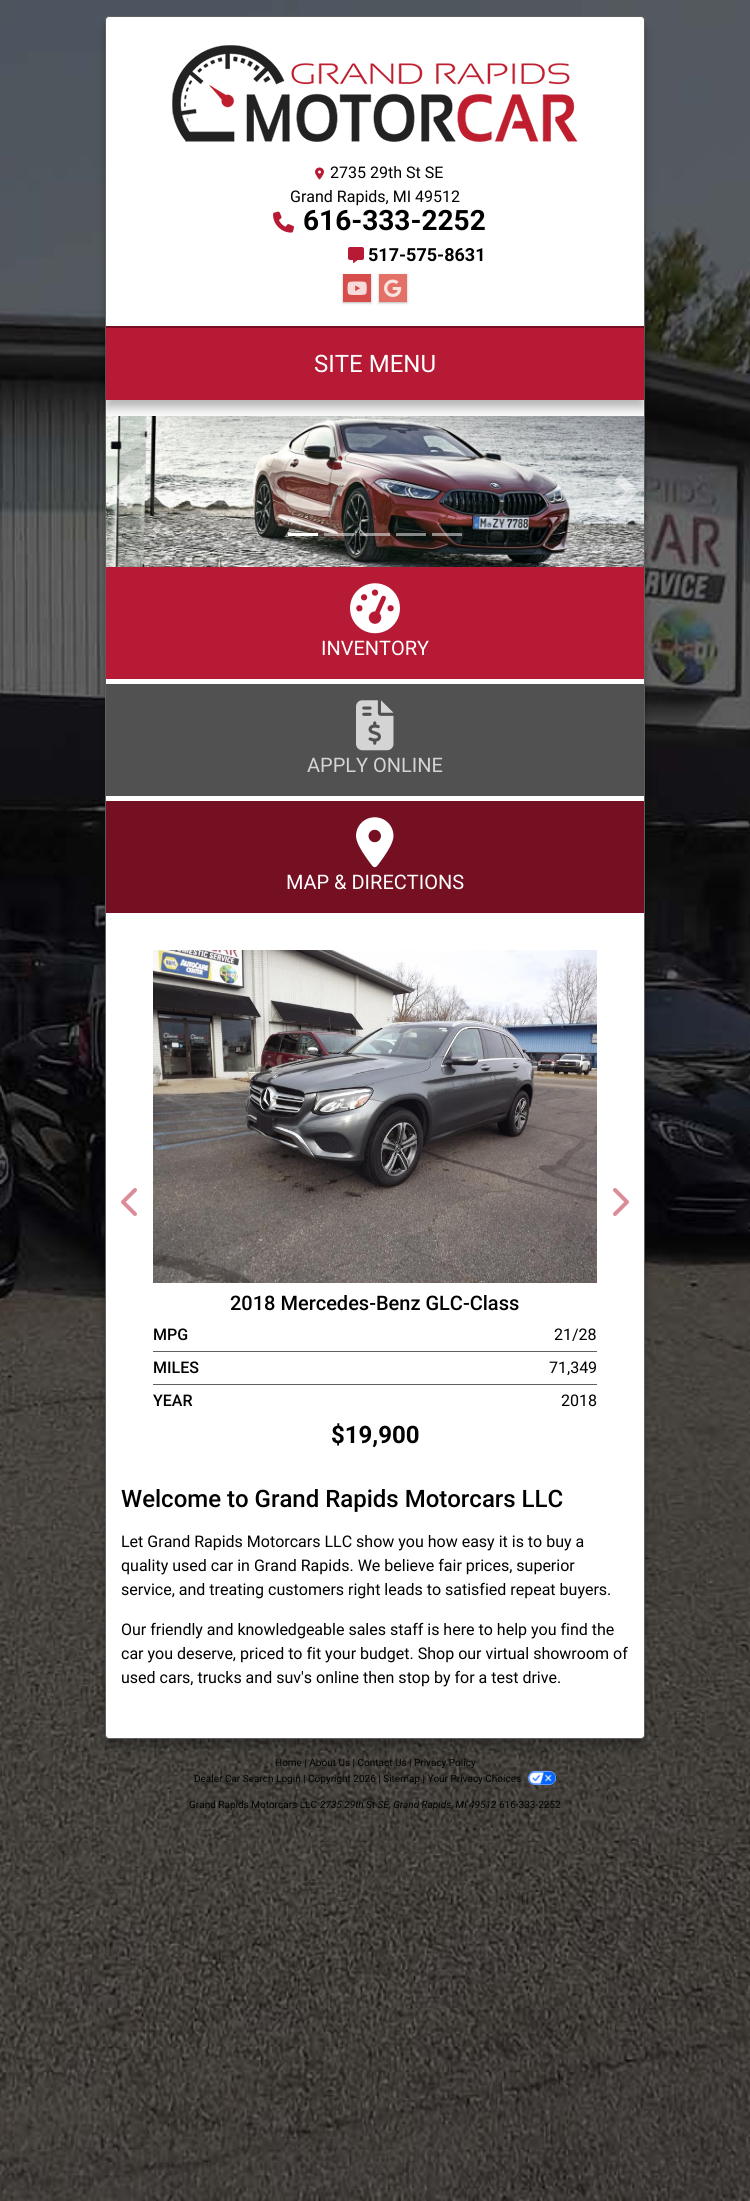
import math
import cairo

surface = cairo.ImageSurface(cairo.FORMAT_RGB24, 750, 2201)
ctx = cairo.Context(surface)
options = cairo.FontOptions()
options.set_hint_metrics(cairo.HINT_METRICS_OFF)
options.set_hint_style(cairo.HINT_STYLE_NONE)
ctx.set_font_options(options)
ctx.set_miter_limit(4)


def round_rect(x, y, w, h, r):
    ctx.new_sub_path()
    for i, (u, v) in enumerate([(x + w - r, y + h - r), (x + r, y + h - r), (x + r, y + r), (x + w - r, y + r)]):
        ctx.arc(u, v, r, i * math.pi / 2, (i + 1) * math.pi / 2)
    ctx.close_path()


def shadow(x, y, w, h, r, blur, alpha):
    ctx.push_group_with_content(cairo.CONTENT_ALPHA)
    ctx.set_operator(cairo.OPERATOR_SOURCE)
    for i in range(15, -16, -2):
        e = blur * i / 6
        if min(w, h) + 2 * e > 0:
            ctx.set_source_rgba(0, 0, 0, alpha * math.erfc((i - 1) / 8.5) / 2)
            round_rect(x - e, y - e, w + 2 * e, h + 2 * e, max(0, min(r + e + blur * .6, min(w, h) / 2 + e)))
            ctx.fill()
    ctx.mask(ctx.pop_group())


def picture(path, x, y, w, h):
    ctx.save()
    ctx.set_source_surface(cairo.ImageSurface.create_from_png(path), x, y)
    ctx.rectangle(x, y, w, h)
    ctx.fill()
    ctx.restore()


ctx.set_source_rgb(1, 1, 1)
ctx.paint()
picture("img1.png", 0, 0, 750, 2201)
ctx.set_source_rgb(0, 0, 0)
shadow(105, 21, 540, 1723, 4, 2.5, 0.1)
shadow(105, 26, 540, 1723, 4, 5, 0.2)
ctx.set_source_rgb(1, 1, 1)
round_rect(105.5, 16.5, 539, 1722, 3.5)
ctx.fill_preserve()
ctx.set_source_rgb(0.373, 0.373, 0.373)
ctx.set_line_width(1)
ctx.stroke()
picture("img2.png", 172, 45, 406, 97)
picture("img3.png", 315, 167, 9, 13)
ctx.select_font_face("Roboto")
ctx.set_font_size(16)
ctx.set_source_rgb(0, 0, 0)
ctx.move_to(330, 178)
ctx.show_text("2735 29th St SE")
ctx.move_to(290, 202)
ctx.show_text("Grand Rapids, MI 49512")
picture("img4.png", 273, 211, 21, 22)
ctx.select_font_face("Roboto", cairo.FONT_SLANT_NORMAL, cairo.FONT_WEIGHT_BOLD)
ctx.set_font_size(28)
ctx.move_to(303, 230)
ctx.show_text("616-333-2252")
picture("img5.png", 348, 247, 16, 16)
ctx.set_font_size(18)
ctx.move_to(368, 261)
ctx.show_text("517-575-8631")
ctx.set_source_rgb(0.2, 0.2, 0.2)
shadow(343, 275, 28, 28, 0, 0.5, 0.2)
shadow(342, 274, 30, 30, 0, 1, 0.1)
ctx.set_source_rgb(0.843, 0.302, 0.298)
ctx.rectangle(343, 274, 28, 28)
ctx.fill()
picture("img6.png", 347, 281, 20, 14)
ctx.set_source_rgb(0.2, 0.2, 0.2)
shadow(379, 275, 28, 28, 0, 0.5, 0.2)
shadow(378, 274, 30, 30, 0, 1, 0.1)
ctx.set_source_rgb(0.89, 0.443, 0.404)
ctx.rectangle(379, 274, 28, 28)
ctx.fill()
picture("img7.png", 384, 279, 18, 18)
ctx.set_source_rgb(0, 0, 0)
shadow(106, 331, 538, 74, 0, 2.5, 0.1)
shadow(106, 336, 538, 74, 0, 5, 0.2)
ctx.set_source_rgb(0.718, 0.102, 0.204)
ctx.rectangle(106, 328, 538, 72)
ctx.fill()
ctx.set_source_rgb(0.455, 0.063, 0.129)
ctx.rectangle(106, 326, 538, 2)
ctx.fill()
ctx.select_font_face("Roboto")
ctx.set_font_size(24)
ctx.set_source_rgb(1, 1, 1)
ctx.move_to(314, 372)
ctx.show_text("SITE MENU")
picture("img8.png", 106, 416, 538, 151)
ctx.set_source_rgba(1, 1, 1, 0.5)
ctx.new_path()
ctx.move_to(129, 474)
ctx.line_to(111.5, 491.5)
ctx.line_to(129, 509)
ctx.line_to(135.5, 502.5)
ctx.line_to(124.5, 491.5)
ctx.line_to(135.5, 480.5)
ctx.close_path()
ctx.fill()
ctx.new_path()
ctx.move_to(621, 474)
ctx.line_to(614.5, 480.5)
ctx.line_to(625.5, 491.5)
ctx.line_to(614.5, 502.5)
ctx.line_to(621, 509)
ctx.line_to(638.5, 491.5)
ctx.close_path()
ctx.fill()
ctx.set_source_rgb(1, 1, 1)
ctx.rectangle(288, 533, 30, 3)
ctx.fill()
ctx.set_source_rgba(1, 1, 1, 0.5)
ctx.rectangle(324, 533, 30, 3)
ctx.fill()
ctx.rectangle(360, 533, 30, 3)
ctx.fill()
ctx.rectangle(396, 533, 30, 3)
ctx.fill()
ctx.rectangle(432, 533, 30, 3)
ctx.fill()
ctx.set_source_rgb(0.718, 0.102, 0.204)
ctx.rectangle(106, 567, 538, 112)
ctx.fill()
picture("img9.png", 350, 583, 50, 51)
ctx.set_font_size(20)
ctx.set_source_rgb(1, 1, 1)
ctx.move_to(321, 655)
ctx.show_text("INVENTORY")
ctx.set_source_rgb(0.318, 0.318, 0.318)
ctx.rectangle(106, 684, 538, 112)
ctx.fill()
picture("img10.png", 356, 700, 38, 51)
ctx.set_source_rgb(0.831, 0.831, 0.831)
ctx.move_to(307, 772)
ctx.show_text("APPLY ONLINE")
ctx.set_source_rgb(0.455, 0.063, 0.129)
ctx.rectangle(106, 801, 538, 112)
ctx.fill()
picture("img11.png", 356, 817, 38, 51)
ctx.set_source_rgb(1, 1, 1)
ctx.move_to(286, 889)
ctx.show_text("MAP & DIRECTIONS")
picture("img12.png", 121, 1188, 16, 28)
picture("img13.png", 613, 1188, 16, 28)
picture("img14.png", 153, 950, 444, 333)
ctx.select_font_face("Roboto Medium")
ctx.set_source_rgb(0, 0, 0)
ctx.move_to(230, 1310)
ctx.show_text("2018 Mercedes-Benz GLC-Class")
ctx.set_font_size(16)
ctx.move_to(153, 1340)
ctx.show_text("MPG")
ctx.select_font_face("Roboto")
ctx.move_to(554, 1340)
ctx.show_text("21/28")
ctx.set_source_rgb(0.373, 0.373, 0.373)
ctx.rectangle(153, 1351, 444, 1)
ctx.fill()
ctx.select_font_face("Roboto Medium")
ctx.set_source_rgb(0, 0, 0)
ctx.move_to(153, 1373)
ctx.show_text("MILES")
ctx.select_font_face("Roboto")
ctx.move_to(549, 1373)
ctx.show_text("71,349")
ctx.set_source_rgb(0.373, 0.373, 0.373)
ctx.rectangle(153, 1384, 444, 1)
ctx.fill()
ctx.select_font_face("Roboto Medium")
ctx.set_source_rgb(0, 0, 0)
ctx.move_to(153, 1406)
ctx.show_text("YEAR")
ctx.select_font_face("Roboto")
ctx.move_to(561, 1406)
ctx.show_text("2018")
ctx.select_font_face("Roboto", cairo.FONT_SLANT_NORMAL, cairo.FONT_WEIGHT_BOLD)
ctx.set_font_size(24)
ctx.move_to(331, 1443)
ctx.show_text("$19,900")
ctx.select_font_face("Roboto Medium")
ctx.move_to(121, 1507)
ctx.show_text("Welcome to Grand Rapids Motorcars LLC")
ctx.select_font_face("Roboto")
ctx.set_font_size(16)
ctx.move_to(121, 1547)
ctx.show_text("Let Grand Rapids Motorcars LLC show you how easy it is to buy a")
ctx.move_to(121, 1571)
ctx.show_text("quality used car in Grand Rapids. We believe fair prices, superior")
ctx.move_to(121, 1595)
ctx.show_text("service, and treating customers right leads to satisfied repeat buyers.")
ctx.move_to(121, 1635)
ctx.show_text("Our friendly and knowledgeable sales staff is here to help you find the")
ctx.move_to(121, 1659)
ctx.show_text("car you deserve, priced to fit your budget. Shop our virtual showroom of")
ctx.move_to(121, 1683)
ctx.show_text("used cars, trucks and suv's online then stop by for a test drive.")
ctx.set_font_size(10)
ctx.move_to(275, 1766)
ctx.show_text("Home | About Us | Contact Us | Privacy Policy")
ctx.move_to(194, 1782)
ctx.show_text("Dealer Car Search Login | Copyright 2026 | Sitemap | Your Privacy Choices")
picture("img15.png", 528, 1771, 28, 14)
ctx.move_to(189, 1808)
ctx.show_text("Grand Rapids Motorcars LLC")
ctx.select_font_face("Roboto", cairo.FONT_SLANT_ITALIC)
ctx.move_to(320, 1808)
ctx.show_text("2735 29th St SE, Grand Rapids, MI 49512")
ctx.select_font_face("Roboto")
ctx.move_to(499, 1808)
ctx.show_text("616-333-2252")
surface.write_to_png("page.png")
